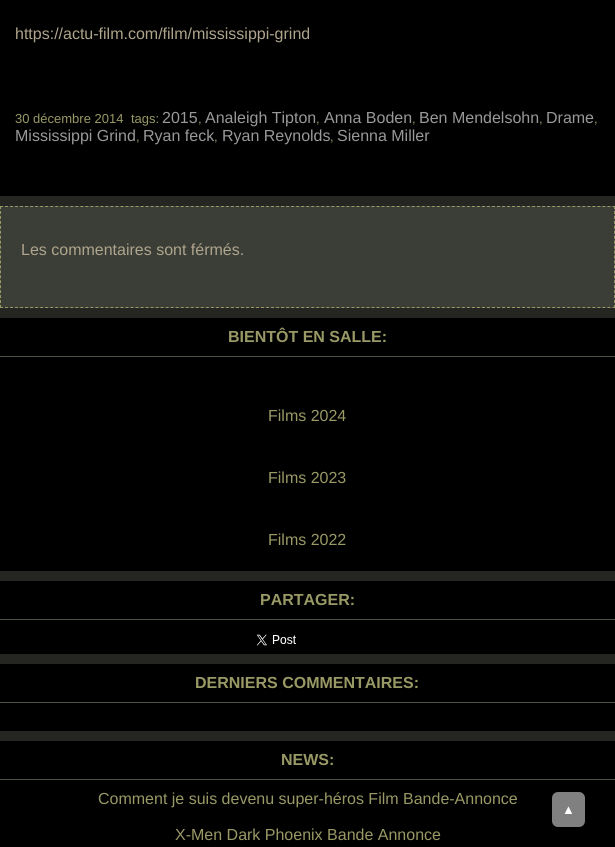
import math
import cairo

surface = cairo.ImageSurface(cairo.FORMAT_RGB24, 615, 847)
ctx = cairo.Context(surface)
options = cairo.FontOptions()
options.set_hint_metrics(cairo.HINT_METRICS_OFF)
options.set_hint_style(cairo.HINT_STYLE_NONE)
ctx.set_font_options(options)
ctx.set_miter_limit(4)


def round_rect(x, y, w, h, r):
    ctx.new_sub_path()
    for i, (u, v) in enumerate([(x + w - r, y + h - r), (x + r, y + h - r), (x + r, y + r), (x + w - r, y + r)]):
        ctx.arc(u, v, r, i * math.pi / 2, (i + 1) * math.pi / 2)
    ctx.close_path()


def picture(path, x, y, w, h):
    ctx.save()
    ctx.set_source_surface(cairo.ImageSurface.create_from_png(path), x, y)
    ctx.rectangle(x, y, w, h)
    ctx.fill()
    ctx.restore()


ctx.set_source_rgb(0.145, 0.149, 0.133)
ctx.paint()
ctx.set_source_rgb(0, 0, 0)
ctx.rectangle(0, 0, 615, 196)
ctx.fill()
ctx.select_font_face("Liberation Sans")
ctx.set_font_size(16)
ctx.set_source_rgb(0.682, 0.647, 0.549)
ctx.move_to(15, 39)
ctx.show_text("https://actu-film.com/film/mississippi-grind")
ctx.set_font_size(13)
ctx.set_source_rgb(0.6, 0.6, 0.4)
ctx.move_to(15, 123)
ctx.show_text("30 décembre 2014")
ctx.move_to(131, 123)
ctx.show_text("tags:")
ctx.set_font_size(16)
ctx.set_source_rgb(0.6, 0.6, 0.6)
ctx.move_to(162, 123)
ctx.show_text("2015")
ctx.set_font_size(13)
ctx.set_source_rgb(0.6, 0.6, 0.4)
ctx.move_to(198, 123)
ctx.show_text(",")
ctx.set_font_size(16)
ctx.set_source_rgb(0.6, 0.6, 0.6)
ctx.move_to(205, 123)
ctx.show_text("Analeigh Tipton")
ctx.set_font_size(13)
ctx.set_source_rgb(0.6, 0.6, 0.4)
ctx.move_to(316, 123)
ctx.show_text(",")
ctx.set_font_size(16)
ctx.set_source_rgb(0.6, 0.6, 0.6)
ctx.move_to(324, 123)
ctx.show_text("Anna Boden")
ctx.set_font_size(13)
ctx.set_source_rgb(0.6, 0.6, 0.4)
ctx.move_to(412, 123)
ctx.show_text(",")
ctx.set_font_size(16)
ctx.set_source_rgb(0.6, 0.6, 0.6)
ctx.move_to(419, 123)
ctx.show_text("Ben Mendelsohn")
ctx.set_font_size(13)
ctx.set_source_rgb(0.6, 0.6, 0.4)
ctx.move_to(539, 123)
ctx.show_text(",")
ctx.set_font_size(16)
ctx.set_source_rgb(0.6, 0.6, 0.6)
ctx.move_to(546, 123)
ctx.show_text("Drame")
ctx.set_font_size(13)
ctx.set_source_rgb(0.6, 0.6, 0.4)
ctx.move_to(594, 123)
ctx.show_text(",")
ctx.set_font_size(16)
ctx.set_source_rgb(0.6, 0.6, 0.6)
ctx.move_to(15, 141)
ctx.show_text("Mississippi Grind")
ctx.set_font_size(13)
ctx.set_source_rgb(0.6, 0.6, 0.4)
ctx.move_to(136, 141)
ctx.show_text(",")
ctx.set_font_size(16)
ctx.set_source_rgb(0.6, 0.6, 0.6)
ctx.move_to(143, 141)
ctx.show_text("Ryan feck")
ctx.set_font_size(13)
ctx.set_source_rgb(0.6, 0.6, 0.4)
ctx.move_to(214, 141)
ctx.show_text(",")
ctx.set_font_size(16)
ctx.set_source_rgb(0.6, 0.6, 0.6)
ctx.move_to(222, 141)
ctx.show_text("Ryan Reynolds")
ctx.set_font_size(13)
ctx.set_source_rgb(0.6, 0.6, 0.4)
ctx.move_to(330, 141)
ctx.show_text(",")
ctx.set_font_size(16)
ctx.set_source_rgb(0.6, 0.6, 0.6)
ctx.move_to(337, 141)
ctx.show_text("Sienna Miller")
ctx.set_source_rgb(0.231, 0.239, 0.216)
ctx.rectangle(0, 206, 615, 102)
ctx.fill()
ctx.new_path()
ctx.move_to(0, 206.5)
ctx.line_to(615, 206.5)
ctx.set_source_rgb(0.6, 0.6, 0.4)
ctx.set_line_width(1)
ctx.set_dash([3, 2.02])
ctx.stroke()
ctx.new_path()
ctx.move_to(614.5, 206)
ctx.line_to(614.5, 308)
ctx.set_dash([3, 1.95])
ctx.stroke()
ctx.new_path()
ctx.move_to(0, 307.5)
ctx.line_to(615, 307.5)
ctx.set_dash([3, 2.02])
ctx.stroke()
ctx.new_path()
ctx.move_to(0.5, 206)
ctx.line_to(0.5, 308)
ctx.set_dash([3, 1.95])
ctx.stroke()
ctx.set_source_rgb(0.682, 0.647, 0.549)
ctx.move_to(21, 255)
ctx.show_text("Les commentaires sont férmés.")
ctx.set_source_rgb(0, 0, 0)
ctx.rectangle(0, 318, 615, 253)
ctx.fill()
ctx.set_source_rgb(0.318, 0.318, 0.267)
ctx.rectangle(0, 356, 615, 1)
ctx.fill()
ctx.select_font_face("Liberation Sans", cairo.FONT_SLANT_NORMAL, cairo.FONT_WEIGHT_BOLD)
ctx.set_source_rgb(0.6, 0.6, 0.4)
ctx.move_to(228, 342)
ctx.show_text("BIENTÔT EN SALLE:")
ctx.select_font_face("Liberation Sans")
ctx.move_to(268, 421)
ctx.show_text("Films 2024")
ctx.move_to(268, 483)
ctx.show_text("Films 2023")
ctx.move_to(268, 545)
ctx.show_text("Films 2022")
ctx.set_source_rgb(0, 0, 0)
ctx.rectangle(0, 581, 615, 73)
ctx.fill()
ctx.set_source_rgb(0.318, 0.318, 0.267)
ctx.rectangle(0, 619, 615, 1)
ctx.fill()
ctx.select_font_face("Liberation Sans", cairo.FONT_SLANT_NORMAL, cairo.FONT_WEIGHT_BOLD)
ctx.set_source_rgb(0.6, 0.6, 0.4)
ctx.move_to(260, 605)
ctx.show_text("PARTAGER:")
picture("img1.png", 256, 634, 40, 12)
ctx.set_source_rgb(0, 0, 0)
ctx.rectangle(0, 664, 615, 67)
ctx.fill()
ctx.set_source_rgb(0.318, 0.318, 0.267)
ctx.rectangle(0, 702, 615, 1)
ctx.fill()
ctx.set_source_rgb(0.6, 0.6, 0.4)
ctx.move_to(195, 688)
ctx.show_text("DERNIERS COMMENTAIRES:")
ctx.set_source_rgb(0, 0, 0)
ctx.rectangle(0, 741, 615, 106)
ctx.fill()
ctx.set_source_rgb(0.318, 0.318, 0.267)
ctx.rectangle(0, 779, 615, 1)
ctx.fill()
ctx.set_source_rgb(0.6, 0.6, 0.4)
ctx.move_to(281, 765)
ctx.show_text("NEWS:")
ctx.select_font_face("Liberation Sans")
ctx.move_to(98, 804)
ctx.show_text("Comment je suis devenu super-héros Film Bande-Annonce")
ctx.move_to(175, 840)
ctx.show_text("X-Men Dark Phoenix Bande Annonce")
ctx.set_source_rgb(0.502, 0.502, 0.502)
round_rect(552, 792, 33, 35, 6)
ctx.fill()
ctx.set_font_size(13)
ctx.set_source_rgb(1, 1, 1)
ctx.move_to(562, 814)
ctx.show_text("▲")
surface.write_to_png("page.png")
